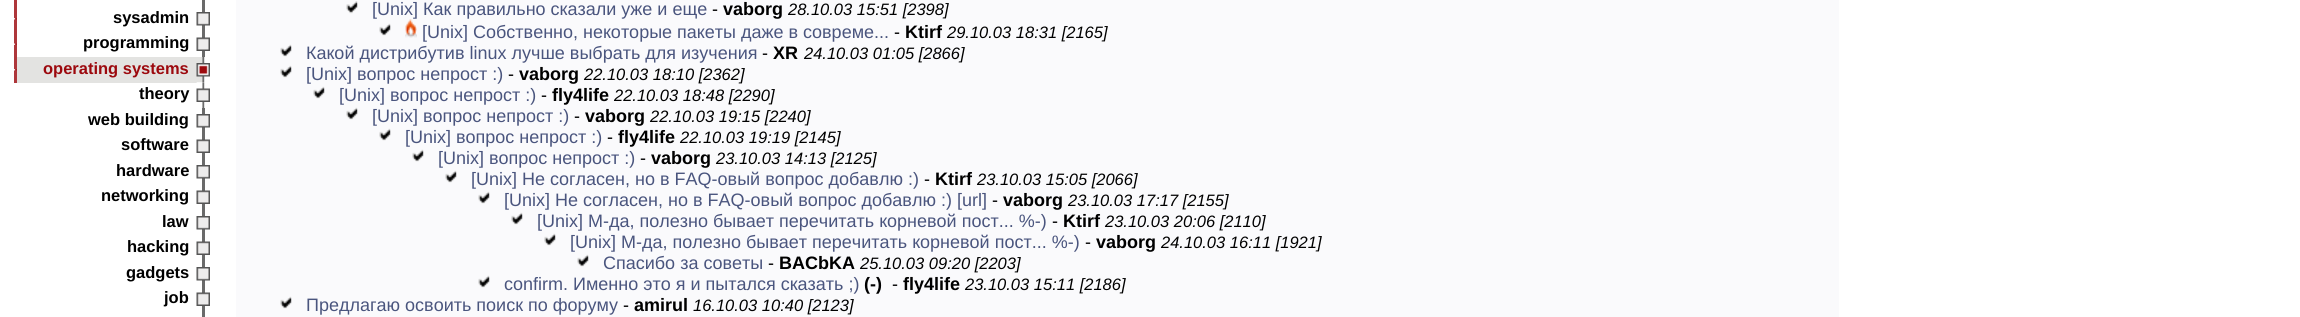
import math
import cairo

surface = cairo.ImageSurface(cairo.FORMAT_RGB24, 2300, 317)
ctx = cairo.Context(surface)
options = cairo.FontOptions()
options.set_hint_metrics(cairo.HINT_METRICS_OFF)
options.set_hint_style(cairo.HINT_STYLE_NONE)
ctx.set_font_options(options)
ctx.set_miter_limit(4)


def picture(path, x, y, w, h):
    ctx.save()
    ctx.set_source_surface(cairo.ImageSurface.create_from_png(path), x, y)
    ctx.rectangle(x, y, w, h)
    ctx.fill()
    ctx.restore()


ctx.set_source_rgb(1, 1, 1)
ctx.paint()
ctx.set_source_rgb(0.682, 0.216, 0.231)
ctx.rectangle(14, 0, 3, 83)
ctx.fill()
ctx.set_source_rgb(0.416, 0.416, 0.416)
ctx.rectangle(202, 0, 3, 57)
ctx.fill()
picture("img1.png", 14, 18, 3, 2)
ctx.select_font_face("Liberation Sans", cairo.FONT_SLANT_NORMAL, cairo.FONT_WEIGHT_BOLD)
ctx.set_font_size(16.5)
ctx.set_source_rgb(0, 0, 0)
ctx.move_to(113, 23)
ctx.show_text("sysadmin")
picture("img2.png", 196, 12, 14, 14)
picture("img3.png", 14, 43, 3, 2)
ctx.move_to(83, 48)
ctx.show_text("programming")
picture("img4.png", 196, 37, 14, 14)
picture("img1.png", 14, 69, 3, 2)
ctx.set_source_rgb(0.89, 0.89, 0.882)
ctx.rectangle(17, 57, 180, 26)
ctx.fill()
ctx.set_source_rgb(0.612, 0.039, 0.055)
ctx.move_to(43, 74)
ctx.show_text("operating systems")
picture("img5.png", 197, 57, 8, 26)
picture("img6.png", 196, 63, 14, 14)
ctx.set_source_rgb(0, 0, 0)
ctx.move_to(139, 99)
ctx.show_text("theory")
picture("img7.png", 196, 82, 9, 26)
picture("img8.png", 196, 88, 14, 14)
ctx.move_to(88, 125)
ctx.show_text("web building")
ctx.set_source_rgb(0.416, 0.416, 0.416)
ctx.rectangle(202, 108, 3, 209)
ctx.fill()
picture("img2.png", 196, 114, 14, 14)
ctx.set_source_rgb(0, 0, 0)
ctx.move_to(121, 150)
ctx.show_text("software")
picture("img4.png", 196, 139, 14, 14)
ctx.move_to(116, 176)
ctx.show_text("hardware")
picture("img2.png", 196, 165, 14, 14)
ctx.move_to(101, 201)
ctx.show_text("networking")
picture("img4.png", 196, 190, 14, 14)
ctx.move_to(162, 227)
ctx.show_text("law")
picture("img2.png", 196, 216, 14, 14)
ctx.move_to(127, 252)
ctx.show_text("hacking")
picture("img4.png", 196, 241, 14, 14)
ctx.move_to(126, 278)
ctx.show_text("gadgets")
picture("img2.png", 196, 267, 14, 14)
ctx.move_to(164, 303)
ctx.show_text("job")
picture("img4.png", 196, 292, 14, 14)
ctx.set_source_rgb(0.98, 0.98, 0.988)
ctx.rectangle(236, 0, 1603, 317)
ctx.fill()
picture("img9.png", 346, 1, 12, 13)
ctx.select_font_face("Liberation Sans")
ctx.set_font_size(18)
ctx.set_source_rgb(0.29, 0.333, 0.494)
ctx.move_to(372, 15)
ctx.show_text("[Unix] Как правильно сказали уже и еще")
ctx.set_source_rgb(0, 0, 0)
ctx.move_to(712, 15)
ctx.show_text("-")
ctx.select_font_face("Liberation Sans", cairo.FONT_SLANT_NORMAL, cairo.FONT_WEIGHT_BOLD)
ctx.move_to(723, 15)
ctx.show_text("vaborg")
ctx.select_font_face("Liberation Sans", cairo.FONT_SLANT_ITALIC)
ctx.set_font_size(16.5)
ctx.move_to(788, 15)
ctx.show_text("28.10.03 15:51 [2398]")
picture("img10.png", 379, 23, 12, 13)
picture("img11.png", 405, 19, 12, 19)
ctx.select_font_face("Liberation Sans")
ctx.set_font_size(18)
ctx.set_source_rgb(0.29, 0.333, 0.494)
ctx.move_to(422, 38)
ctx.show_text("[Unix] Собственно, некоторые пакеты даже в совреме...")
ctx.set_source_rgb(0, 0, 0)
ctx.move_to(894, 38)
ctx.show_text("-")
ctx.select_font_face("Liberation Sans", cairo.FONT_SLANT_NORMAL, cairo.FONT_WEIGHT_BOLD)
ctx.move_to(905, 38)
ctx.show_text("Ktirf")
ctx.select_font_face("Liberation Sans", cairo.FONT_SLANT_ITALIC)
ctx.set_font_size(16.5)
ctx.move_to(947, 38)
ctx.show_text("29.10.03 18:31 [2165]")
picture("img10.png", 280, 44, 12, 13)
ctx.select_font_face("Liberation Sans")
ctx.set_font_size(18)
ctx.set_source_rgb(0.29, 0.333, 0.494)
ctx.move_to(306, 59)
ctx.show_text("Какой дистрибутив linux лучше выбрать для изучения")
ctx.set_source_rgb(0, 0, 0)
ctx.move_to(762, 59)
ctx.show_text("-")
ctx.select_font_face("Liberation Sans", cairo.FONT_SLANT_NORMAL, cairo.FONT_WEIGHT_BOLD)
ctx.move_to(773, 59)
ctx.show_text("XR")
ctx.select_font_face("Liberation Sans", cairo.FONT_SLANT_ITALIC)
ctx.set_font_size(16.5)
ctx.move_to(804, 59)
ctx.show_text("24.10.03 01:05 [2866]")
picture("img10.png", 280, 65, 12, 13)
ctx.select_font_face("Liberation Sans")
ctx.set_font_size(18)
ctx.set_source_rgb(0.29, 0.333, 0.494)
ctx.move_to(306, 80)
ctx.show_text("[Unix] вопрос непрост :)")
ctx.set_source_rgb(0, 0, 0)
ctx.move_to(508, 80)
ctx.show_text("-")
ctx.select_font_face("Liberation Sans", cairo.FONT_SLANT_NORMAL, cairo.FONT_WEIGHT_BOLD)
ctx.move_to(519, 80)
ctx.show_text("vaborg")
ctx.select_font_face("Liberation Sans", cairo.FONT_SLANT_ITALIC)
ctx.set_font_size(16.5)
ctx.move_to(584, 80)
ctx.show_text("22.10.03 18:10 [2362]")
picture("img10.png", 313, 86, 12, 13)
ctx.select_font_face("Liberation Sans")
ctx.set_font_size(18)
ctx.set_source_rgb(0.29, 0.333, 0.494)
ctx.move_to(339, 101)
ctx.show_text("[Unix] вопрос непрост :)")
ctx.set_source_rgb(0, 0, 0)
ctx.move_to(541, 101)
ctx.show_text("-")
ctx.select_font_face("Liberation Sans", cairo.FONT_SLANT_NORMAL, cairo.FONT_WEIGHT_BOLD)
ctx.move_to(552, 101)
ctx.show_text("fly4life")
ctx.select_font_face("Liberation Sans", cairo.FONT_SLANT_ITALIC)
ctx.set_font_size(16.5)
ctx.move_to(614, 101)
ctx.show_text("22.10.03 18:48 [2290]")
picture("img10.png", 346, 107, 12, 13)
ctx.select_font_face("Liberation Sans")
ctx.set_font_size(18)
ctx.set_source_rgb(0.29, 0.333, 0.494)
ctx.move_to(372, 122)
ctx.show_text("[Unix] вопрос непрост :)")
ctx.set_source_rgb(0, 0, 0)
ctx.move_to(574, 122)
ctx.show_text("-")
ctx.select_font_face("Liberation Sans", cairo.FONT_SLANT_NORMAL, cairo.FONT_WEIGHT_BOLD)
ctx.move_to(585, 122)
ctx.show_text("vaborg")
ctx.select_font_face("Liberation Sans", cairo.FONT_SLANT_ITALIC)
ctx.set_font_size(16.5)
ctx.move_to(650, 122)
ctx.show_text("22.10.03 19:15 [2240]")
picture("img10.png", 379, 128, 12, 13)
ctx.select_font_face("Liberation Sans")
ctx.set_font_size(18)
ctx.set_source_rgb(0.29, 0.333, 0.494)
ctx.move_to(405, 143)
ctx.show_text("[Unix] вопрос непрост :)")
ctx.set_source_rgb(0, 0, 0)
ctx.move_to(607, 143)
ctx.show_text("-")
ctx.select_font_face("Liberation Sans", cairo.FONT_SLANT_NORMAL, cairo.FONT_WEIGHT_BOLD)
ctx.move_to(618, 143)
ctx.show_text("fly4life")
ctx.select_font_face("Liberation Sans", cairo.FONT_SLANT_ITALIC)
ctx.set_font_size(16.5)
ctx.move_to(680, 143)
ctx.show_text("22.10.03 19:19 [2145]")
picture("img10.png", 412, 149, 12, 13)
ctx.select_font_face("Liberation Sans")
ctx.set_font_size(18)
ctx.set_source_rgb(0.29, 0.333, 0.494)
ctx.move_to(438, 164)
ctx.show_text("[Unix] вопрос непрост :)")
ctx.set_source_rgb(0, 0, 0)
ctx.move_to(640, 164)
ctx.show_text("-")
ctx.select_font_face("Liberation Sans", cairo.FONT_SLANT_NORMAL, cairo.FONT_WEIGHT_BOLD)
ctx.move_to(651, 164)
ctx.show_text("vaborg")
ctx.select_font_face("Liberation Sans", cairo.FONT_SLANT_ITALIC)
ctx.set_font_size(16.5)
ctx.move_to(716, 164)
ctx.show_text("23.10.03 14:13 [2125]")
picture("img10.png", 445, 170, 12, 13)
ctx.select_font_face("Liberation Sans")
ctx.set_font_size(18)
ctx.set_source_rgb(0.29, 0.333, 0.494)
ctx.move_to(471, 185)
ctx.show_text("[Unix] Не согласен, но в FAQ-овый вопрос добавлю :)")
ctx.set_source_rgb(0, 0, 0)
ctx.move_to(924, 185)
ctx.show_text("-")
ctx.select_font_face("Liberation Sans", cairo.FONT_SLANT_NORMAL, cairo.FONT_WEIGHT_BOLD)
ctx.move_to(935, 185)
ctx.show_text("Ktirf")
ctx.select_font_face("Liberation Sans", cairo.FONT_SLANT_ITALIC)
ctx.set_font_size(16.5)
ctx.move_to(977, 185)
ctx.show_text("23.10.03 15:05 [2066]")
picture("img10.png", 478, 191, 12, 13)
ctx.select_font_face("Liberation Sans")
ctx.set_font_size(18)
ctx.set_source_rgb(0.29, 0.333, 0.494)
ctx.move_to(504, 206)
ctx.show_text("[Unix] Не согласен, но в FAQ-овый вопрос добавлю :) [url]")
ctx.set_source_rgb(0, 0, 0)
ctx.move_to(992, 206)
ctx.show_text("-")
ctx.select_font_face("Liberation Sans", cairo.FONT_SLANT_NORMAL, cairo.FONT_WEIGHT_BOLD)
ctx.move_to(1003, 206)
ctx.show_text("vaborg")
ctx.select_font_face("Liberation Sans", cairo.FONT_SLANT_ITALIC)
ctx.set_font_size(16.5)
ctx.move_to(1068, 206)
ctx.show_text("23.10.03 17:17 [2155]")
picture("img12.png", 511, 212, 12, 13)
ctx.select_font_face("Liberation Sans")
ctx.set_font_size(18)
ctx.set_source_rgb(0.29, 0.333, 0.494)
ctx.move_to(537, 227)
ctx.show_text("[Unix] М-да, полезно бывает перечитать корневой пост... %-)")
ctx.set_source_rgb(0, 0, 0)
ctx.move_to(1052, 227)
ctx.show_text("-")
ctx.select_font_face("Liberation Sans", cairo.FONT_SLANT_NORMAL, cairo.FONT_WEIGHT_BOLD)
ctx.move_to(1063, 227)
ctx.show_text("Ktirf")
ctx.select_font_face("Liberation Sans", cairo.FONT_SLANT_ITALIC)
ctx.set_font_size(16.5)
ctx.move_to(1105, 227)
ctx.show_text("23.10.03 20:06 [2110]")
picture("img12.png", 544, 233, 12, 13)
ctx.select_font_face("Liberation Sans")
ctx.set_font_size(18)
ctx.set_source_rgb(0.29, 0.333, 0.494)
ctx.move_to(570, 248)
ctx.show_text("[Unix] М-да, полезно бывает перечитать корневой пост... %-)")
ctx.set_source_rgb(0, 0, 0)
ctx.move_to(1085, 248)
ctx.show_text("-")
ctx.select_font_face("Liberation Sans", cairo.FONT_SLANT_NORMAL, cairo.FONT_WEIGHT_BOLD)
ctx.move_to(1096, 248)
ctx.show_text("vaborg")
ctx.select_font_face("Liberation Sans", cairo.FONT_SLANT_ITALIC)
ctx.set_font_size(16.5)
ctx.move_to(1161, 248)
ctx.show_text("24.10.03 16:11 [1921]")
picture("img10.png", 577, 254, 12, 13)
ctx.select_font_face("Liberation Sans")
ctx.set_font_size(18)
ctx.set_source_rgb(0.29, 0.333, 0.494)
ctx.move_to(603, 269)
ctx.show_text("Спасибо за советы")
ctx.set_source_rgb(0, 0, 0)
ctx.move_to(768, 269)
ctx.show_text("-")
ctx.select_font_face("Liberation Sans", cairo.FONT_SLANT_NORMAL, cairo.FONT_WEIGHT_BOLD)
ctx.move_to(779, 269)
ctx.show_text("BACbKA")
ctx.select_font_face("Liberation Sans", cairo.FONT_SLANT_ITALIC)
ctx.set_font_size(16.5)
ctx.move_to(860, 269)
ctx.show_text("25.10.03 09:20 [2203]")
picture("img10.png", 478, 275, 12, 13)
ctx.select_font_face("Liberation Sans")
ctx.set_font_size(18)
ctx.set_source_rgb(0.29, 0.333, 0.494)
ctx.move_to(504, 290)
ctx.show_text("confirm. Именно это я и пытался сказать ;)")
ctx.select_font_face("Liberation Sans", cairo.FONT_SLANT_NORMAL, cairo.FONT_WEIGHT_BOLD)
ctx.set_source_rgb(0, 0, 0)
ctx.move_to(864, 290)
ctx.show_text("(-)")
ctx.select_font_face("Liberation Sans")
ctx.move_to(892, 290)
ctx.show_text("-")
ctx.select_font_face("Liberation Sans", cairo.FONT_SLANT_NORMAL, cairo.FONT_WEIGHT_BOLD)
ctx.move_to(903, 290)
ctx.show_text("fly4life")
ctx.select_font_face("Liberation Sans", cairo.FONT_SLANT_ITALIC)
ctx.set_font_size(16.5)
ctx.move_to(965, 290)
ctx.show_text("23.10.03 15:11 [2186]")
picture("img10.png", 280, 296, 12, 13)
ctx.select_font_face("Liberation Sans")
ctx.set_font_size(18)
ctx.set_source_rgb(0.29, 0.333, 0.494)
ctx.move_to(306, 311)
ctx.show_text("Предлагаю освоить поиск по форуму")
ctx.set_source_rgb(0, 0, 0)
ctx.move_to(623, 311)
ctx.show_text("-")
ctx.select_font_face("Liberation Sans", cairo.FONT_SLANT_NORMAL, cairo.FONT_WEIGHT_BOLD)
ctx.move_to(634, 311)
ctx.show_text("amirul")
ctx.select_font_face("Liberation Sans", cairo.FONT_SLANT_ITALIC)
ctx.set_font_size(16.5)
ctx.move_to(693, 311)
ctx.show_text("16.10.03 10:40 [2123]")
surface.write_to_png("page.png")
